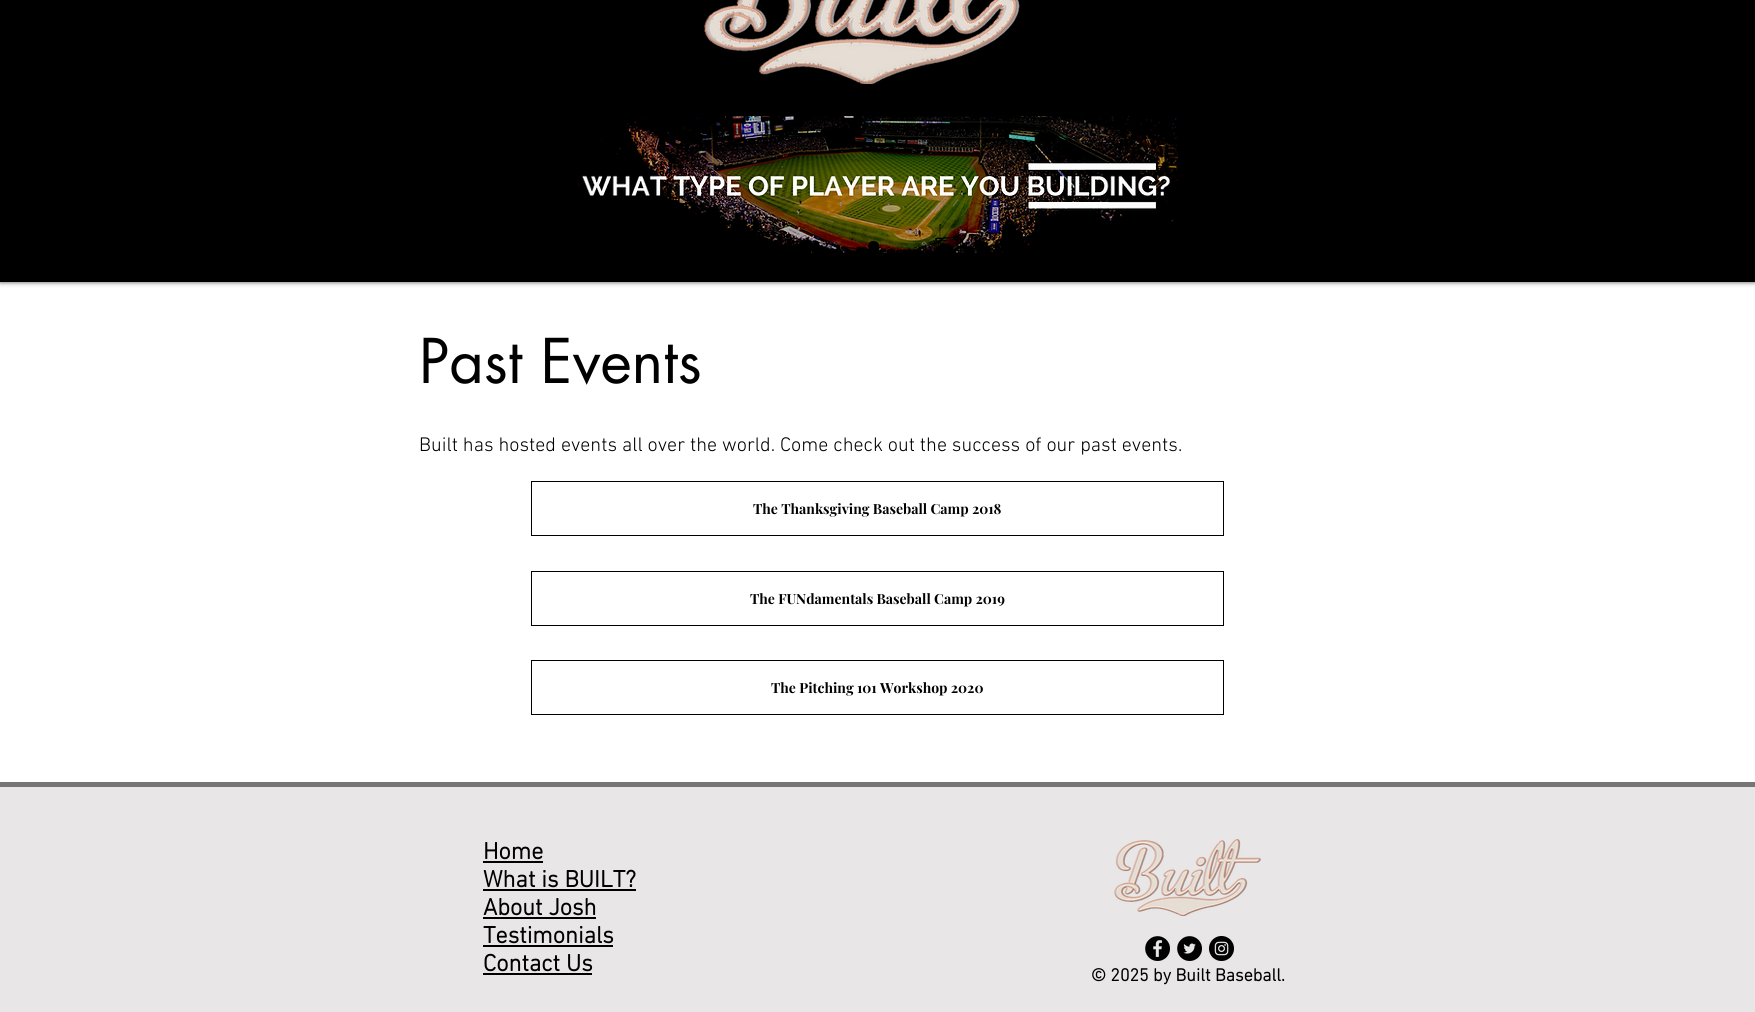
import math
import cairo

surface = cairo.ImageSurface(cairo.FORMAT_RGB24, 1755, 1012)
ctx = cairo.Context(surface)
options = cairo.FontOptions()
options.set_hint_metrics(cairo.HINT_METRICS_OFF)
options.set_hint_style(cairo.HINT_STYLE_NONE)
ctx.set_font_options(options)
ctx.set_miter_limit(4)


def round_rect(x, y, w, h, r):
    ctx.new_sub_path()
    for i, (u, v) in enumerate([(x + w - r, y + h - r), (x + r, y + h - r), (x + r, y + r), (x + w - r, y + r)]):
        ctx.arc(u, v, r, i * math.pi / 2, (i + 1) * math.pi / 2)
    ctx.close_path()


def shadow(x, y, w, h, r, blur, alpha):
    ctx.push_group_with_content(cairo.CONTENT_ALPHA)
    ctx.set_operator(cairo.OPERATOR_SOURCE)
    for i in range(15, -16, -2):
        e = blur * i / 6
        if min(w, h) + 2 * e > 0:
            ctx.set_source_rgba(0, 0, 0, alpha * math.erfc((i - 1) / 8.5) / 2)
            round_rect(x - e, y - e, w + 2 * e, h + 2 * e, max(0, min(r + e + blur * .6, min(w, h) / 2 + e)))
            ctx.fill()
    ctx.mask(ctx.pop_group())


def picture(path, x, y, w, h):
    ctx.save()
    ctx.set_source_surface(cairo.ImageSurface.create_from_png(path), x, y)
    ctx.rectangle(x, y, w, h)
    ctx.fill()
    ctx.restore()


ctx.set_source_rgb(1, 1, 1)
ctx.paint()
ctx.set_source_rgb(0, 0, 0)
shadow(0, -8, 1755, 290, 0, 2.5, 0.7)
ctx.set_source_rgb(0, 0, 0)
ctx.rectangle(0, 0, 1755, 282)
ctx.fill()
picture("img1.png", 704, 0, 316, 84)
picture("img2.png", 578, 116, 600, 137)
ctx.select_font_face("futura")
ctx.set_font_size(60)
ctx.move_to(419, 383)
ctx.show_text("Past Events")
ctx.select_font_face("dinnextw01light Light")
ctx.set_font_size(20)
ctx.move_to(419, 451)
ctx.show_text("Built has hosted events all over the world. Come check out the success of our past events.")
ctx.rectangle(531.5, 481.5, 692, 54)
ctx.set_line_width(1)
ctx.stroke()
ctx.select_font_face("Playfair Display", cairo.FONT_SLANT_NORMAL, cairo.FONT_WEIGHT_BOLD)
ctx.set_font_size(14)
ctx.move_to(753, 514)
ctx.show_text("The Thanksgiving Baseball Camp 2018")
ctx.rectangle(531.5, 571.5, 692, 54)
ctx.stroke()
ctx.move_to(750, 604)
ctx.show_text("The FUNdamentals Baseball Camp 2019")
ctx.rectangle(531.5, 660.5, 692, 54)
ctx.stroke()
ctx.move_to(771, 693)
ctx.show_text("The Pitching 101 Workshop 2020")
ctx.set_source_rgb(0.91, 0.902, 0.902)
ctx.rectangle(0, 787, 1755, 225)
ctx.fill()
ctx.set_source_rgb(0.463, 0.463, 0.463)
ctx.rectangle(0, 782, 1755, 5)
ctx.fill()
ctx.select_font_face("dinnextw01light", cairo.FONT_SLANT_NORMAL, cairo.FONT_WEIGHT_BOLD)
ctx.set_font_size(24)
ctx.set_source_rgb(0, 0, 0)
ctx.move_to(483, 859)
ctx.show_text("Home")
ctx.rectangle(483, 861, 60, 2)
ctx.fill()
ctx.move_to(483, 887)
ctx.show_text("What is BUILT?")
ctx.rectangle(483, 889, 153, 2)
ctx.fill()
ctx.move_to(483, 915)
ctx.show_text("About Josh")
ctx.rectangle(483, 917, 113, 2)
ctx.fill()
ctx.move_to(483, 943)
ctx.show_text("Testimonials")
ctx.rectangle(483, 945, 130, 2)
ctx.fill()
ctx.move_to(483, 971)
ctx.show_text("Contact Us")
ctx.rectangle(483, 973, 109, 2)
ctx.fill()
picture("img3.png", 1114, 839, 147, 77)
picture("img4.png", 1145, 936, 25, 25)
picture("img5.png", 1177, 936, 25, 25)
picture("img6.png", 1209, 936, 25, 25)
ctx.set_font_size(18)
ctx.move_to(1091, 981)
ctx.show_text("© 2025 by Built Baseball.")
surface.write_to_png("page.png")
